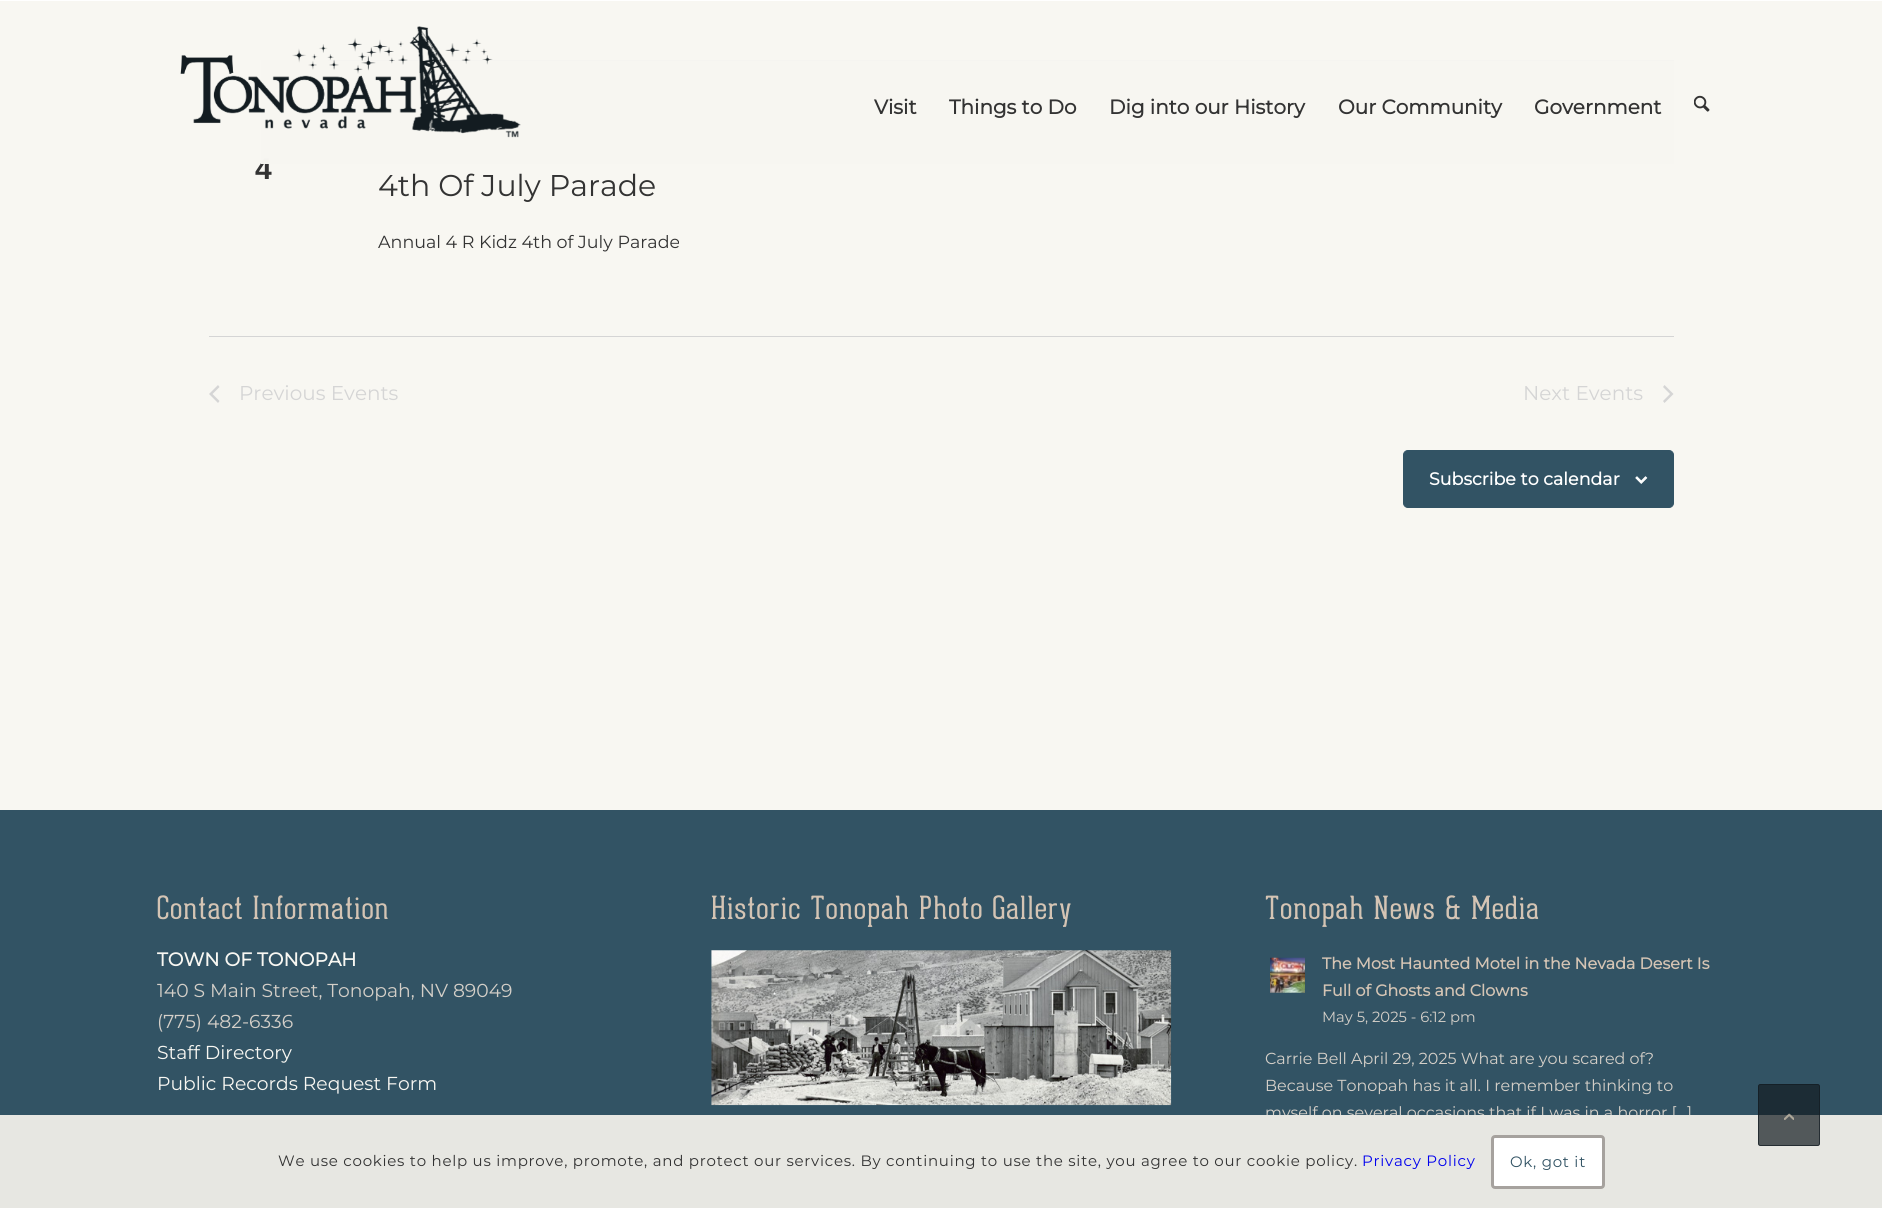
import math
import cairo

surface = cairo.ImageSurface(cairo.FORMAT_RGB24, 1882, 1208)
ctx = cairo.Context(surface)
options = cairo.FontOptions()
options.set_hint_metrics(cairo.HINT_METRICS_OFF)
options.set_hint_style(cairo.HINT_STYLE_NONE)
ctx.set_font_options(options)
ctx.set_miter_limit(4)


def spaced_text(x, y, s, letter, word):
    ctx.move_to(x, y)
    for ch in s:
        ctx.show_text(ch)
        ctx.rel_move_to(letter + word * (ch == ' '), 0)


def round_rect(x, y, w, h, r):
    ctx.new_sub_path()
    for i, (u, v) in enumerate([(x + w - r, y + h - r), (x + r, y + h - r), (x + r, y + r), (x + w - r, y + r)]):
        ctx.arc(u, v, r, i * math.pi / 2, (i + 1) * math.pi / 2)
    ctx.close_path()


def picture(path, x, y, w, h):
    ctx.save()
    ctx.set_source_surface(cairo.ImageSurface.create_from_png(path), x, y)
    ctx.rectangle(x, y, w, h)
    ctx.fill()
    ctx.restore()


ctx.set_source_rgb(0.969, 0.965, 0.949)
ctx.paint()
ctx.set_source_rgb(0.835, 0.835, 0.835)
ctx.rectangle(328, 60, 1346, 1)
ctx.fill()
ctx.select_font_face("Liberation Sans", cairo.FONT_SLANT_NORMAL, cairo.FONT_WEIGHT_BOLD)
ctx.set_font_size(30)
ctx.set_source_rgb(0.2, 0.2, 0.2)
ctx.move_to(255, 179)
ctx.show_text("4")
ctx.set_source_rgba(0.969, 0.965, 0.949, 0.95)
ctx.rectangle(261, 60, 1413, 104)
ctx.fill()
ctx.set_source_rgba(0.969, 0.965, 0.949, 0.67)
ctx.rectangle(261, 158, 8, 6)
ctx.fill()
ctx.set_source_rgb(1, 1, 1)
ctx.rectangle(0, 0, 1882, 1)
ctx.fill()
picture("img1.png", 180, 26, 341, 112)
ctx.select_font_face("Montserrat", cairo.FONT_SLANT_NORMAL, cairo.FONT_WEIGHT_BOLD)
ctx.set_font_size(20)
ctx.set_source_rgb(0.2, 0.2, 0.2)
ctx.move_to(874, 114)
ctx.show_text("Visit")
ctx.move_to(949, 114)
ctx.show_text("Things to Do")
ctx.move_to(1109, 114)
ctx.show_text("Dig into our History")
ctx.move_to(1338, 114)
ctx.show_text("Our Community")
ctx.move_to(1534, 114)
ctx.show_text("Government")
picture("img2.png", 1694, 95, 16, 17)
ctx.select_font_face("Montserrat Thin")
ctx.set_font_size(30)
ctx.move_to(378, 196)
ctx.show_text("4th Of July Parade")
ctx.set_font_size(17.5)
ctx.move_to(378, 248)
ctx.show_text("Annual 4 R Kidz 4th of July Parade")
ctx.set_source_rgb(0.835, 0.835, 0.835)
ctx.rectangle(209, 336, 1465, 1)
ctx.fill()
ctx.new_path()
ctx.move_to(219.5, 401)
ctx.line_to(218, 403)
ctx.line_to(209, 394)
ctx.line_to(218, 385)
ctx.line_to(219.5, 387)
ctx.line_to(212.5, 394)
ctx.close_path()
ctx.fill()
ctx.set_font_size(20)
ctx.move_to(239, 400)
ctx.show_text("Previous Events")
ctx.move_to(1523, 400)
ctx.show_text("Next Events")
ctx.new_path()
ctx.move_to(1663, 387)
ctx.line_to(1664.5, 385)
ctx.line_to(1673.5, 394)
ctx.line_to(1664.5, 403)
ctx.line_to(1663, 401)
ctx.line_to(1670, 394)
ctx.close_path()
ctx.fill()
ctx.set_source_rgb(0.196, 0.325, 0.392)
round_rect(1403.5, 450.5, 270, 57, 4.5)
ctx.fill_preserve()
ctx.set_line_width(1)
ctx.stroke()
ctx.select_font_face("Montserrat", cairo.FONT_SLANT_NORMAL, cairo.FONT_WEIGHT_BOLD)
ctx.set_font_size(17.5)
ctx.set_source_rgb(1, 1, 1)
ctx.move_to(1429, 485)
ctx.show_text("Subscribe to calendar")
picture("img3.png", 1635, 476, 13, 8)
ctx.set_source_rgb(0.196, 0.325, 0.392)
ctx.rectangle(0, 810, 1882, 305)
ctx.fill()
ctx.select_font_face("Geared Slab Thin")
ctx.set_font_size(31.25)
ctx.set_source_rgb(0.831, 0.769, 0.706)
spaced_text(157, 919, "Contact Information", 1.25, 0)
ctx.select_font_face("Montserrat", cairo.FONT_SLANT_NORMAL, cairo.FONT_WEIGHT_BOLD)
ctx.set_font_size(18.75)
ctx.set_source_rgb(0.969, 0.965, 0.949)
ctx.move_to(157, 966)
ctx.show_text("TOWN OF TONOPAH")
ctx.select_font_face("Montserrat Thin")
ctx.set_source_rgb(0.831, 0.812, 0.784)
ctx.move_to(157, 997)
ctx.show_text("140 S Main Street, Tonopah, NV 89049")
ctx.move_to(157, 1028)
ctx.show_text("(775) 482-6336")
ctx.set_source_rgb(0.969, 0.965, 0.949)
ctx.move_to(157, 1059)
ctx.show_text("Staff Directory")
ctx.move_to(157, 1090)
ctx.show_text("Public Records Request Form")
ctx.select_font_face("Geared Slab Thin")
ctx.set_font_size(31.25)
ctx.set_source_rgb(0.831, 0.769, 0.706)
spaced_text(711, 919, "Historic Tonopah Photo Gallery", 1.25, 0)
picture("img4.png", 711, 950, 461, 156)
spaced_text(1265, 919, "Tonopah News & Media", 1.25, 0)
picture("img5.png", 1270, 957, 35, 36)
ctx.select_font_face("Montserrat", cairo.FONT_SLANT_NORMAL, cairo.FONT_WEIGHT_BOLD)
ctx.set_font_size(15.95)
ctx.move_to(1322, 969)
ctx.show_text("The Most Haunted Motel in the Nevada Desert Is")
ctx.move_to(1322, 996)
ctx.show_text("Full of Ghosts and Clowns")
ctx.select_font_face("Montserrat Thin")
ctx.set_font_size(14.75)
ctx.set_source_rgb(0.831, 0.812, 0.784)
ctx.move_to(1322, 1022)
ctx.show_text("May 5, 2025 - 6:12 pm")
ctx.set_font_size(15.95)
ctx.move_to(1265, 1064)
ctx.show_text("Carrie Bell April 29, 2025 What are you scared of?")
ctx.move_to(1265, 1091)
ctx.show_text("Because Tonopah has it all. I remember thinking to")
ctx.move_to(1265, 1118)
ctx.show_text("myself on several occasions that if I was in a horror […]")
ctx.set_source_rgb(0.906, 0.906, 0.886)
ctx.rectangle(0, 1115, 1882, 93)
ctx.fill()
ctx.set_source_rgba(0.075, 0.11, 0.129, 0.7)
round_rect(1758, 1084, 62, 62, 2.5)
ctx.fill()
round_rect(1758.5, 1084.5, 61, 61, 2)
ctx.stroke()
picture("img6.png", 1784, 1113, 10, 7)
ctx.set_font_size(15)
ctx.set_source_rgb(0.2, 0.2, 0.2)
spaced_text(278, 1166, "We use cookies to help us improve, promote, and protect our services. By continuing to use the site, you agree to our cookie policy.", 0.75, 0)
ctx.set_source_rgb(0, 0, 0.933)
spaced_text(1362, 1166, "Privacy Policy", 0.75, 0)
ctx.set_source_rgb(1, 1, 1)
round_rect(1492.5, 1136.5, 111, 51, 2.5)
ctx.fill_preserve()
ctx.set_source_rgb(0.651, 0.635, 0.62)
ctx.set_line_width(3)
ctx.stroke()
ctx.set_source_rgb(0.196, 0.325, 0.392)
spaced_text(1510, 1167, "Ok, got it", 0.75, 0)
surface.write_to_png("page.png")
